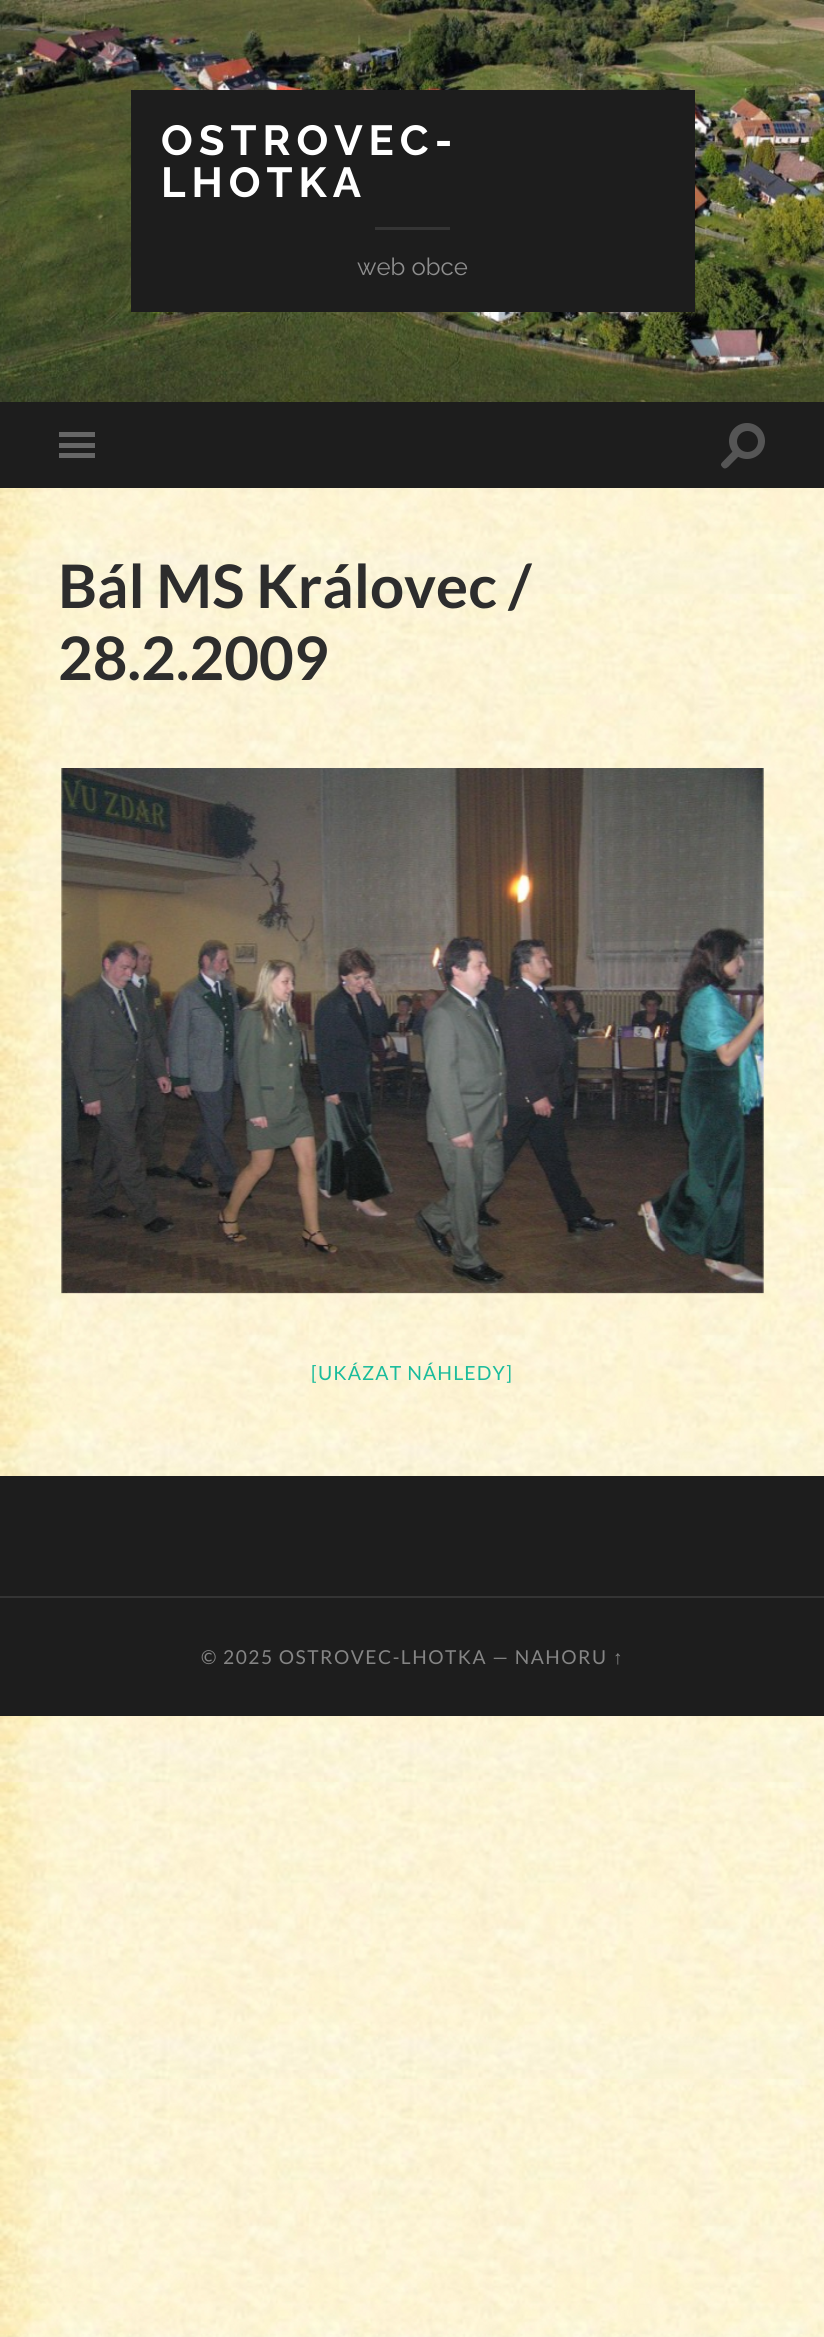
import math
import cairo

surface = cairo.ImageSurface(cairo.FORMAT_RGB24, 824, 2337)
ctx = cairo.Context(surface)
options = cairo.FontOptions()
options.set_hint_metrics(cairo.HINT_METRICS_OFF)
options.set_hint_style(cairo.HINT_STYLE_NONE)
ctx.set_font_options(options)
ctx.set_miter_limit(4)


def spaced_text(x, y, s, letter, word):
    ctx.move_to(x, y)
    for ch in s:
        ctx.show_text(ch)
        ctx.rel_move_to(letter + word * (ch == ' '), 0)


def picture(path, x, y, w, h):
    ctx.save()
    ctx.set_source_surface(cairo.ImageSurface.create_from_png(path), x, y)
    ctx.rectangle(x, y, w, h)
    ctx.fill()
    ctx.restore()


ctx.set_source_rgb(1, 1, 1)
ctx.paint()
picture("img1.png", 0, 488, 824, 1849)
picture("img2.png", 0, 0, 824, 402)
ctx.set_source_rgb(0.114, 0.114, 0.114)
ctx.rectangle(131, 90, 564, 222)
ctx.fill()
ctx.select_font_face("Raleway Thin")
ctx.set_font_size(42)
ctx.set_source_rgb(1, 1, 1)
spaced_text(161, 155, "OSTROVEC-", 6, 0)
spaced_text(161, 197, "LHOTKA", 6, 0)
ctx.set_source_rgb(0.204, 0.204, 0.204)
ctx.rectangle(375, 227, 75, 3)
ctx.fill()
ctx.select_font_face("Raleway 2 Thin")
ctx.set_font_size(24)
ctx.set_source_rgb(0.557, 0.557, 0.557)
ctx.move_to(357, 275)
ctx.show_text("web obce")
ctx.set_source_rgb(0.114, 0.114, 0.114)
ctx.rectangle(0, 402, 824, 86)
ctx.fill()
ctx.set_source_rgb(0.4, 0.4, 0.4)
ctx.rectangle(59, 432, 36, 5)
ctx.fill()
ctx.rectangle(59, 443, 36, 5)
ctx.fill()
ctx.rectangle(59, 453, 36, 5)
ctx.fill()
ctx.set_source_rgb(0.333, 0.333, 0.333)
ctx.arc(747, 441, 18, 0, 2 * math.pi)
ctx.fill()
ctx.set_source_rgb(0.114, 0.114, 0.114)
ctx.arc(747.5, 441.5, 10.5, 0, 2 * math.pi)
ctx.fill()
ctx.set_source_rgb(0.333, 0.333, 0.333)
ctx.new_path()
ctx.move_to(722, 462.5)
ctx.line_to(734.5, 449.5)
ctx.line_to(740, 455)
ctx.line_to(731.5, 463.5)
ctx.curve_to(728.5, 466.5, 725, 471.5, 721.5, 466)
ctx.curve_to(720.5, 465, 721, 463.5, 722, 462.5)
ctx.close_path()
ctx.fill()
ctx.select_font_face("Lato", cairo.FONT_SLANT_NORMAL, cairo.FONT_WEIGHT_BOLD)
ctx.set_font_size(60)
ctx.set_source_rgb(0.176, 0.176, 0.176)
ctx.move_to(58, 608)
ctx.show_text("Bál MS Královec /")
ctx.move_to(58, 680)
ctx.show_text("28.2.2009")
picture("img3.png", 61, 768, 703, 526)
ctx.select_font_face("Lato")
ctx.set_font_size(19.5)
ctx.set_source_rgb(0.102, 0.737, 0.612)
spaced_text(311, 1380, "[UKÁZAT NÁHLEDY]", 1.1, 0)
ctx.set_source_rgb(0.114, 0.114, 0.114)
ctx.rectangle(0, 1476, 824, 120)
ctx.fill()
ctx.rectangle(0, 1598, 824, 118)
ctx.fill()
ctx.set_source_rgb(0.204, 0.204, 0.204)
ctx.rectangle(0, 1596, 824, 2)
ctx.fill()
ctx.set_font_size(19.2)
ctx.set_source_rgb(0.522, 0.522, 0.522)
spaced_text(201, 1664, "© 2025 OSTROVEC-LHOTKA — NAHORU", 1.5, 0)
ctx.select_font_face("Liberation Sans")
spaced_text(613, 1664, "↑", 1.5, 0)
surface.write_to_png("page.png")
